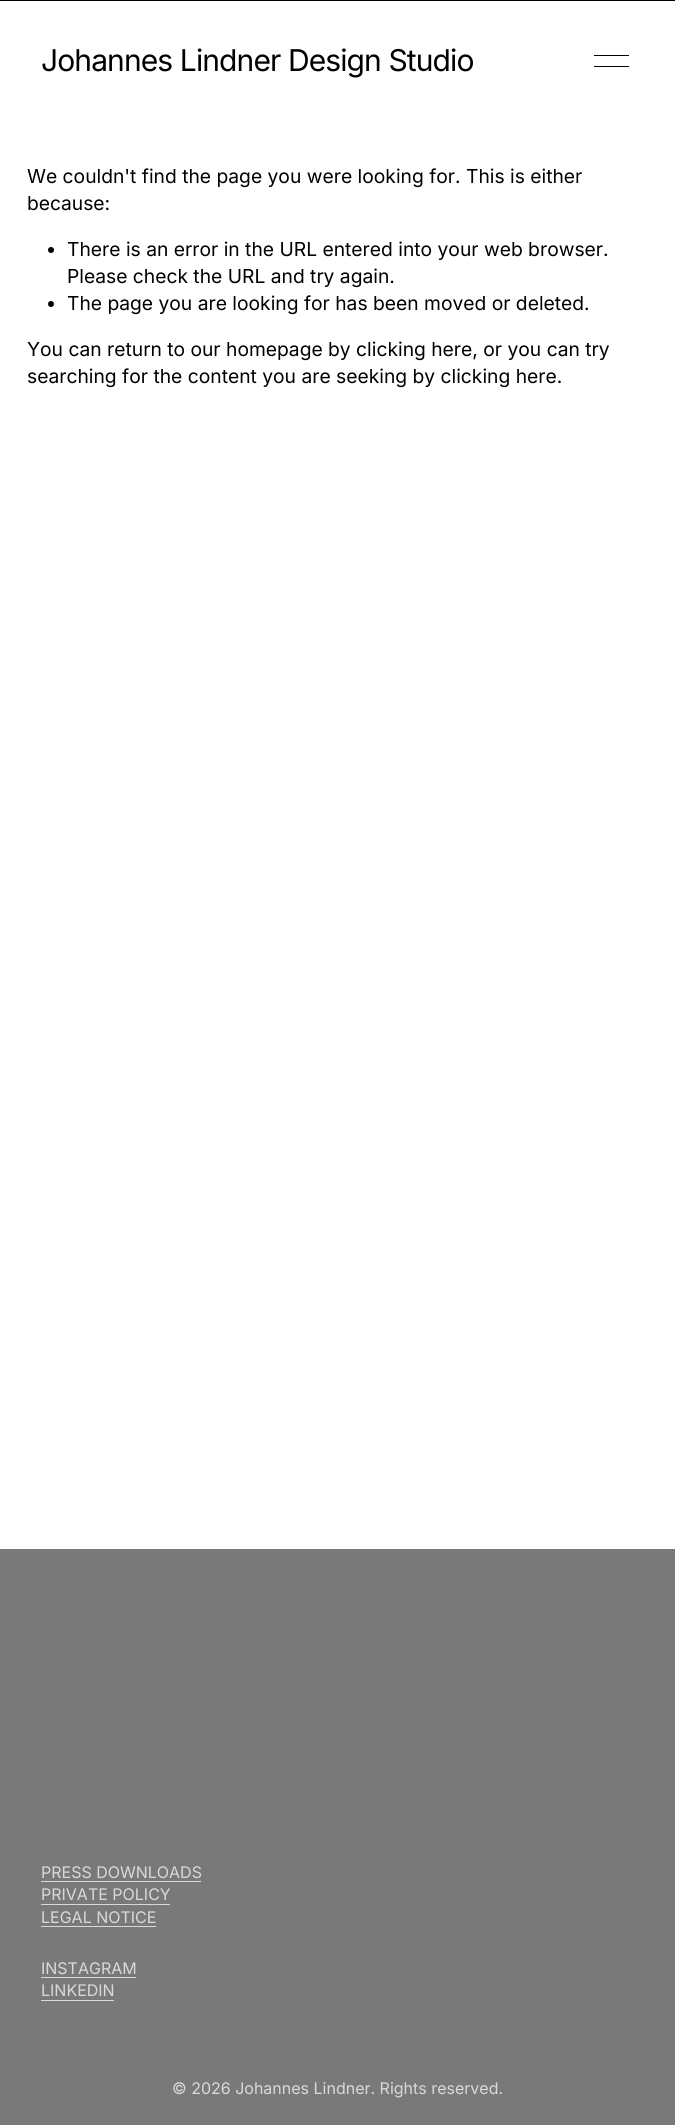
import math
import cairo

surface = cairo.ImageSurface(cairo.FORMAT_RGB24, 675, 2125)
ctx = cairo.Context(surface)
options = cairo.FontOptions()
options.set_hint_metrics(cairo.HINT_METRICS_OFF)
options.set_hint_style(cairo.HINT_STYLE_NONE)
ctx.set_font_options(options)
ctx.set_miter_limit(4)


def spaced_text(x, y, s, letter, word):
    ctx.move_to(x, y)
    for ch in s:
        ctx.show_text(ch)
        ctx.rel_move_to(letter + word * (ch == ' '), 0)


ctx.set_source_rgb(1, 1, 1)
ctx.paint()
ctx.set_source_rgb(0, 0, 0)
ctx.rectangle(0, 0, 675, 1)
ctx.fill()
ctx.select_font_face("Inter")
ctx.set_font_size(30)
spaced_text(41, 71, "Johannes Lindner Design Studio", -0.9, 0)
ctx.rectangle(594, 55, 35, 1)
ctx.fill()
ctx.rectangle(594, 66, 35, 1)
ctx.fill()
ctx.set_font_size(19.25)
ctx.move_to(27, 183)
ctx.show_text("We couldn't find the page you were looking for. This is either")
ctx.move_to(27, 210)
ctx.show_text("because:")
ctx.new_path()
ctx.arc(51, 250, 3, 0, 2 * math.pi)
ctx.fill()
ctx.move_to(67, 256)
ctx.show_text("There is an error in the URL entered into your web browser.")
ctx.move_to(67, 283)
ctx.show_text("Please check the URL and try again.")
ctx.new_path()
ctx.arc(51, 304, 3, 0, 2 * math.pi)
ctx.fill()
ctx.move_to(67, 310)
ctx.show_text("The page you are looking for has been moved or deleted.")
ctx.move_to(27, 356)
ctx.show_text("You can return to our homepage by clicking here, or you can try")
ctx.move_to(27, 383)
ctx.show_text("searching for the content you are seeking by clicking here.")
ctx.set_source_rgb(0.475, 0.475, 0.475)
ctx.rectangle(0, 1549, 675, 576)
ctx.fill()
ctx.set_font_size(16)
ctx.set_source_rgb(0.851, 0.851, 0.851)
ctx.move_to(41, 1878)
ctx.show_text("PRESS DOWNLOADS")
ctx.rectangle(41, 1881, 160, 1)
ctx.fill()
ctx.move_to(41, 1900)
ctx.show_text("PRIVATE POLICY")
ctx.rectangle(41, 1904, 129, 1)
ctx.fill()
ctx.move_to(41, 1923)
ctx.show_text("LEGAL NOTICE")
ctx.rectangle(41, 1926, 115, 1)
ctx.fill()
ctx.move_to(41, 1974)
ctx.show_text("INSTAGRAM")
ctx.rectangle(41, 1977, 95, 1)
ctx.fill()
ctx.move_to(41, 1996)
ctx.show_text("LINKEDIN")
ctx.rectangle(41, 2000, 73, 1)
ctx.fill()
ctx.move_to(172, 2094)
ctx.show_text("© 2026 Johannes Lindner. Rights reserved.")
surface.write_to_png("page.png")
